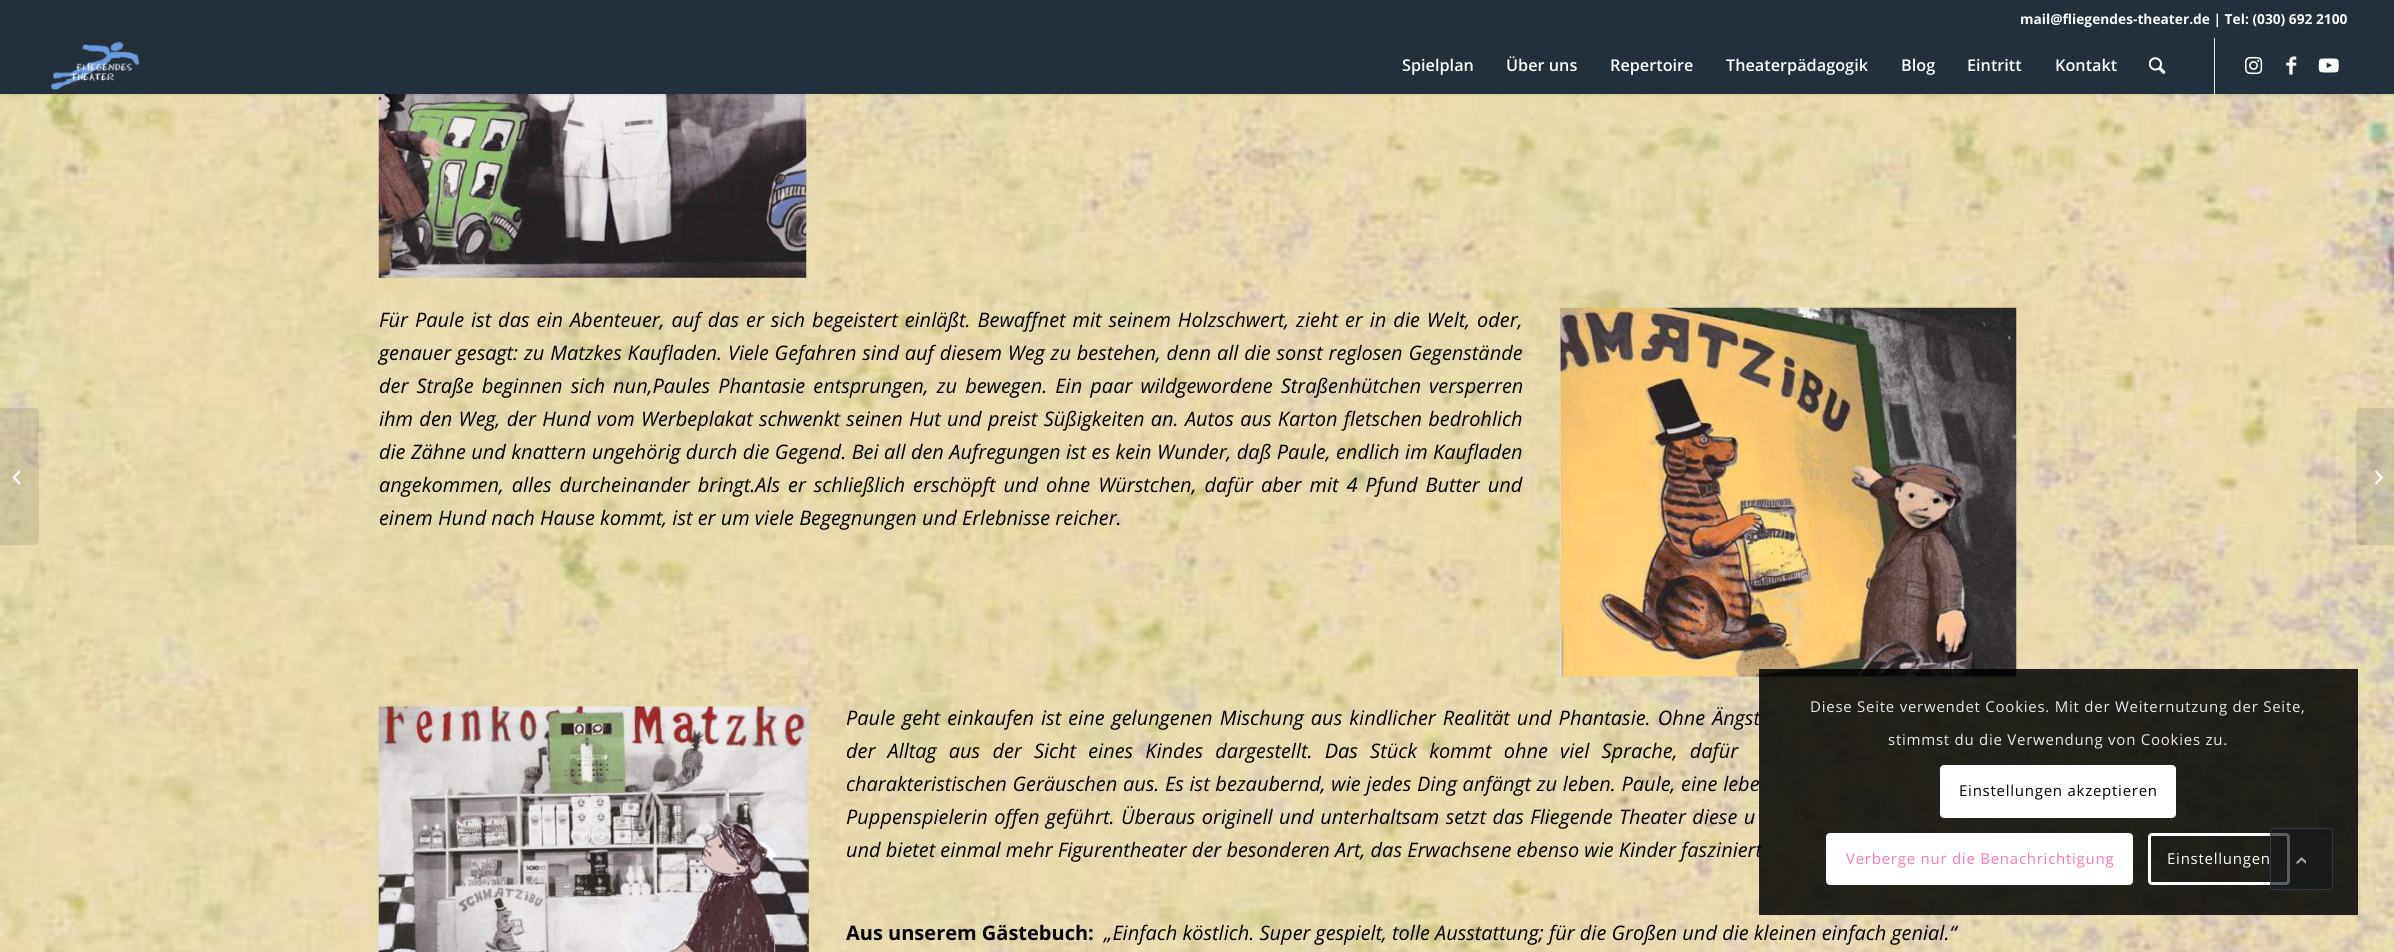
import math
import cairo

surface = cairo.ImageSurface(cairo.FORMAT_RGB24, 2394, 952)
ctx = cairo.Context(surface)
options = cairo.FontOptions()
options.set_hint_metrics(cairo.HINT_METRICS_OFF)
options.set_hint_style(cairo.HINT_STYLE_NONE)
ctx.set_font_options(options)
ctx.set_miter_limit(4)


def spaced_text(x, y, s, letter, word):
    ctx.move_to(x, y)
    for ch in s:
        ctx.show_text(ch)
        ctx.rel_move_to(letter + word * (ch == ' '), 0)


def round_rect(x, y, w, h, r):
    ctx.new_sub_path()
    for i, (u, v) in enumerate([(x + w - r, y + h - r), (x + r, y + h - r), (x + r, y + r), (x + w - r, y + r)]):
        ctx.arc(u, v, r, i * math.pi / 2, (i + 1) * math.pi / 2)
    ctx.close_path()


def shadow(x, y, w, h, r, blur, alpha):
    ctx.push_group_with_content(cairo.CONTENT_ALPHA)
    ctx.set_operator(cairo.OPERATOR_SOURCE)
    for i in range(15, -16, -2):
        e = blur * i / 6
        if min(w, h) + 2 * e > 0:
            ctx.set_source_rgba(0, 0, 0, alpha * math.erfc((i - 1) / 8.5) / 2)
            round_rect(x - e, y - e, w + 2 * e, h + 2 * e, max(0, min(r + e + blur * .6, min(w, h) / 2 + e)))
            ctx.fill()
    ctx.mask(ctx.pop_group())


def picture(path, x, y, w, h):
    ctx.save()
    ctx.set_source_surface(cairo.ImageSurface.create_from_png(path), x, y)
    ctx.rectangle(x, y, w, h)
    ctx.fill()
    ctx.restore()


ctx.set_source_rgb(1, 1, 1)
ctx.paint()
picture("img7.png", 0, 94, 2394, 858)
picture("img8.png", 378, 94, 429, 184)
ctx.set_source_rgb(0, 0, 0)
shadow(-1, -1, 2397, 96, 0, 1, 0.1)
ctx.set_source_rgb(0.137, 0.184, 0.227)
ctx.rectangle(0, 0, 2394, 94)
ctx.fill()
ctx.select_font_face("Open Sans", cairo.FONT_SLANT_NORMAL, cairo.FONT_WEIGHT_BOLD)
ctx.set_font_size(13.75)
ctx.set_source_rgb(0.996, 1, 0.988)
ctx.move_to(2020, 24)
ctx.show_text("mail@fliegendes-theater.de | Tel: (030) 692 2100")
picture("img1.png", 50, 41, 90, 49)
ctx.set_source_rgb(0.894, 0.902, 0.941)
ctx.rectangle(2214, 38, 1, 56)
ctx.fill()
ctx.select_font_face("Open Sans SemiBold")
ctx.set_font_size(16.25)
ctx.set_source_rgb(0.996, 1, 0.988)
ctx.move_to(1402, 71)
ctx.show_text("Spielplan")
ctx.move_to(1506, 71)
ctx.show_text("Über uns")
ctx.move_to(1610, 71)
ctx.show_text("Repertoire")
ctx.move_to(1726, 71)
ctx.show_text("Theaterpädagogik")
ctx.move_to(1901, 71)
ctx.show_text("Blog")
ctx.move_to(1967, 71)
ctx.show_text("Eintritt")
ctx.move_to(2055, 71)
ctx.show_text("Kontakt")
picture("img2.png", 2149, 57, 17, 17)
picture("img3.png", 2245, 56, 18, 19)
picture("img4.png", 2286, 56, 11, 19)
picture("img5.png", 2318, 58, 21, 15)
ctx.set_source_rgba(0, 0, 0, 0.1)
ctx.new_path()
ctx.move_to(0, 408)
ctx.line_to(34, 408)
ctx.curve_to(37, 408, 39, 410, 39, 413)
ctx.line_to(39, 540)
ctx.curve_to(39, 543, 37, 545, 34, 545)
ctx.line_to(0, 545)
ctx.close_path()
ctx.fill()
picture("img6.png", 13, 470, 7, 15)
ctx.select_font_face("Open Sans", cairo.FONT_SLANT_ITALIC)
ctx.set_font_size(20)
ctx.set_source_rgb(0, 0, 0)
spaced_text(379, 327, "Für Paule ist das ein Abenteuer, auf das er sich begeistert einläßt. Bewaffnet mit seinem Holzschwert, zieht er in die Welt, oder,", 0, 1.8)
picture("img9.png", 1560, 307, 457, 370)
spaced_text(379, 360, "genauer gesagt: zu Matzkes Kaufladen. Viele Gefahren sind auf diesem Weg zu bestehen, denn all die sonst reglosen Gegenstände", 0, 0.6)
spaced_text(379, 393, "der Straße beginnen sich nun,Paules Phantasie entsprungen, zu bewegen. Ein paar wildgewordene Straßenhütchen versperren", 0, 2.9)
spaced_text(379, 426, "ihm den Weg, der Hund vom Werbeplakat schwenkt seinen Hut und preist Süßigkeiten an. Autos aus Karton fletschen bedrohlich", 0, 1.1)
spaced_text(379, 459, "die Zähne und knattern ungehörig durch die Gegend. Bei all den Aufregungen ist es kein Wunder, daß Paule, endlich im Kaufladen", 0, 0.25)
spaced_text(379, 492, "angekommen, alles durcheinander bringt.Als er schließlich erschöpft und ohne Würstchen, dafür aber mit 4 Pfund Butter und", 0, 2.75)
ctx.move_to(379, 525)
ctx.show_text("einem Hund nach Hause kommt, ist er um viele Begegnungen und Erlebnisse reicher.")
picture("img10.png", 378, 706, 431, 246)
spaced_text(846, 725, "Paule geht einkaufen ist eine gelungenen Mischung aus kindlicher Realität und Phantasie. Ohne Ängst", 0, 1.9)
spaced_text(846, 758, "der Alltag aus der Sicht eines Kindes dargestellt. Das Stück kommt ohne viel Sprache, dafür", 0, 7)
spaced_text(846, 791, "charakteristischen Geräuschen aus. Es ist bezaubernd, wie jedes Ding anfängt zu leben. Paule, eine lebe", 0, 0.5)
spaced_text(846, 824, "Puppenspielerin offen geführt. Überaus originell und unterhaltsam setzt das Fliegende Theater diese u", 0, 1.25)
ctx.move_to(846, 857)
ctx.show_text("und bietet einmal mehr Figurentheater der besonderen Art, das Erwachsene ebenso wie Kinder fasziniert")
ctx.select_font_face("Open Sans", cairo.FONT_SLANT_NORMAL, cairo.FONT_WEIGHT_BOLD)
ctx.move_to(846, 940)
ctx.show_text("Aus unserem Gästebuch:")
ctx.select_font_face("Open Sans", cairo.FONT_SLANT_ITALIC)
ctx.move_to(1104, 940)
ctx.show_text("„Einfach köstlich. Super gespielt, tolle Ausstattung; für die Großen und die kleinen einfach genial.“")
ctx.set_source_rgba(0, 0, 0, 0.1)
ctx.new_path()
ctx.move_to(2361, 408)
ctx.line_to(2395, 408)
ctx.line_to(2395, 545)
ctx.line_to(2361, 545)
ctx.curve_to(2358, 545, 2356, 543, 2356, 540)
ctx.line_to(2356, 413)
ctx.curve_to(2356, 410, 2358, 408, 2361, 408)
ctx.close_path()
ctx.fill()
picture("img11.png", 2375, 470, 8, 15)
ctx.set_source_rgba(0, 0, 0, 0.85)
ctx.rectangle(1759, 669, 599, 246)
ctx.fill()
ctx.select_font_face("Open Sans")
ctx.set_font_size(15)
ctx.set_source_rgb(0.914, 0.914, 0.91)
spaced_text(1810, 712, "Diese Seite verwendet Cookies. Mit der Weiternutzung der Seite,", 0.75, 0)
spaced_text(1888, 745, "stimmst du die Verwendung von Cookies zu.", 0.75, 0)
ctx.set_source_rgb(1, 1, 1)
round_rect(1940, 765, 236, 53, 4)
ctx.fill()
ctx.set_source_rgb(0, 0, 0)
spaced_text(1959, 796, "Einstellungen akzeptieren", 0.75, 0)
ctx.set_source_rgb(1, 1, 1)
round_rect(1827.5, 834.5, 304, 49, 2.5)
ctx.fill_preserve()
ctx.set_line_width(3)
ctx.stroke()
ctx.set_source_rgb(1, 0.459, 0.71)
spaced_text(1846, 864, "Verberge nur die Benachrichtigung", 0.75, 0)
round_rect(2149.5, 834.5, 139, 49, 2.5)
ctx.set_source_rgb(1, 1, 1)
ctx.stroke()
ctx.set_source_rgb(0.996, 1, 0.988)
spaced_text(2167, 864, "Einstellungen", 0.75, 0)
ctx.set_source_rgba(0.086, 0.102, 0.11, 0.7)
round_rect(2270, 828, 63, 62, 2.5)
ctx.fill()
round_rect(2270.5, 828.5, 62, 61, 2)
ctx.set_source_rgba(0.243, 0.29, 0.322, 0.7)
ctx.set_line_width(1)
ctx.stroke()
picture("img12.png", 2296, 857, 10, 7)
surface.write_to_png("page.png")
